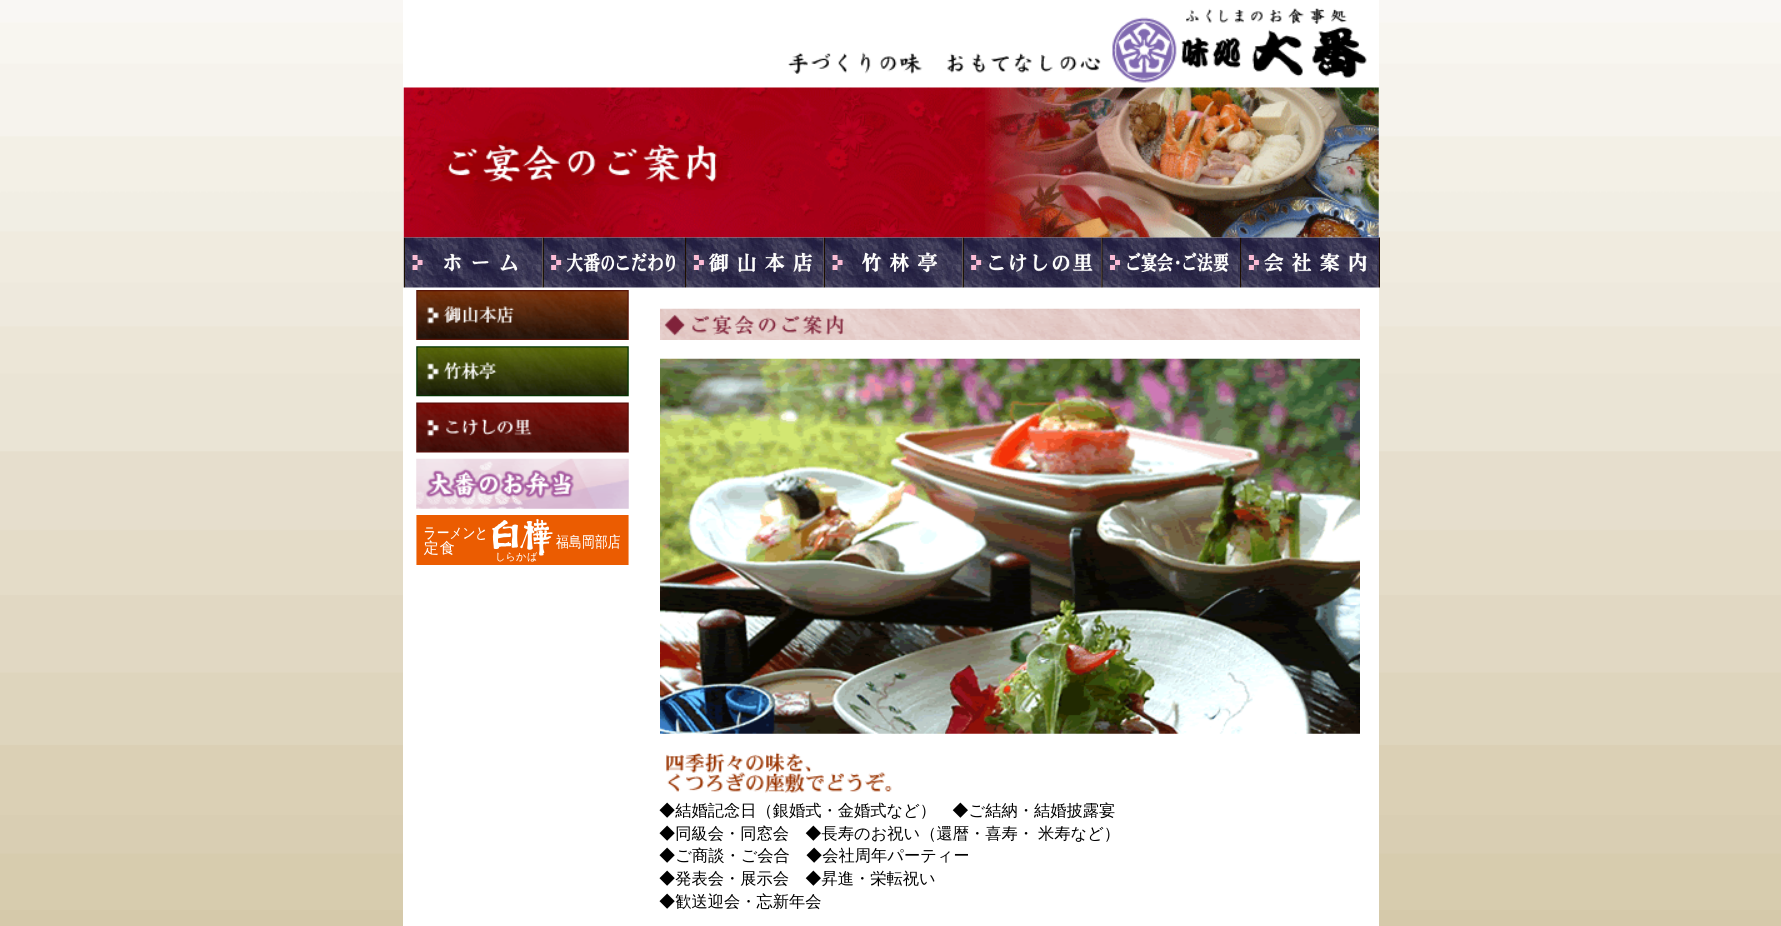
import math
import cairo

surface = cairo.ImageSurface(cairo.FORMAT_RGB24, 1781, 926)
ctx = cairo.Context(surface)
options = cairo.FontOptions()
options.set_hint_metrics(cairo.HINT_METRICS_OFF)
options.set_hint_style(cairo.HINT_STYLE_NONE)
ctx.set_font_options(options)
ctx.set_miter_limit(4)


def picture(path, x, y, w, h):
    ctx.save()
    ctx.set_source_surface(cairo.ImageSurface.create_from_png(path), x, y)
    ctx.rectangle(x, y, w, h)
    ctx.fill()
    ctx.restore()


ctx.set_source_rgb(1, 1, 1)
ctx.paint()
picture("img1.png", 0, 0, 1781, 926)
ctx.set_source_rgb(1, 1, 1)
ctx.rectangle(403, 0, 976, 926)
ctx.fill()
picture("img2.png", 788, 8, 579, 75)
picture("img3.png", 403, 87, 976, 151)
picture("img4.png", 403, 237, 140, 51)
picture("img5.png", 542, 237, 143, 51)
picture("img6.png", 685, 237, 139, 51)
picture("img7.png", 823, 237, 140, 51)
picture("img8.png", 962, 237, 140, 51)
picture("img9.png", 1101, 237, 139, 51)
picture("img10.png", 1240, 237, 140, 51)
picture("img11.png", 416, 290, 213, 50)
picture("img12.png", 416, 346, 213, 51)
picture("img13.png", 416, 402, 213, 51)
picture("img14.png", 416, 458, 213, 51)
picture("img15.png", 416, 515, 213, 50)
picture("img16.png", 660, 308, 700, 32)
picture("img17.png", 660, 358, 700, 376)
picture("img18.png", 666, 752, 226, 41)
ctx.select_font_face("WenQuanYi Zen Hei Medium")
ctx.set_font_size(16.25)
ctx.set_source_rgb(0, 0, 0)
ctx.move_to(659, 816)
ctx.show_text("◆結婚記念日（銀婚式・金婚式など）　◆ご結納・結婚披露宴")
ctx.move_to(659, 839)
ctx.show_text("◆同級会・同窓会　◆長寿のお祝い（還暦・喜寿・")
ctx.move_to(1038, 839)
ctx.show_text("米寿など）")
ctx.move_to(659, 861)
ctx.show_text("◆ご商談・ご会合　◆会社周年パーティー")
ctx.move_to(659, 884)
ctx.show_text("◆発表会・展示会　◆昇進・栄転祝い")
ctx.move_to(659, 907)
ctx.show_text("◆歓送迎会・忘新年会")
surface.write_to_png("page.png")
